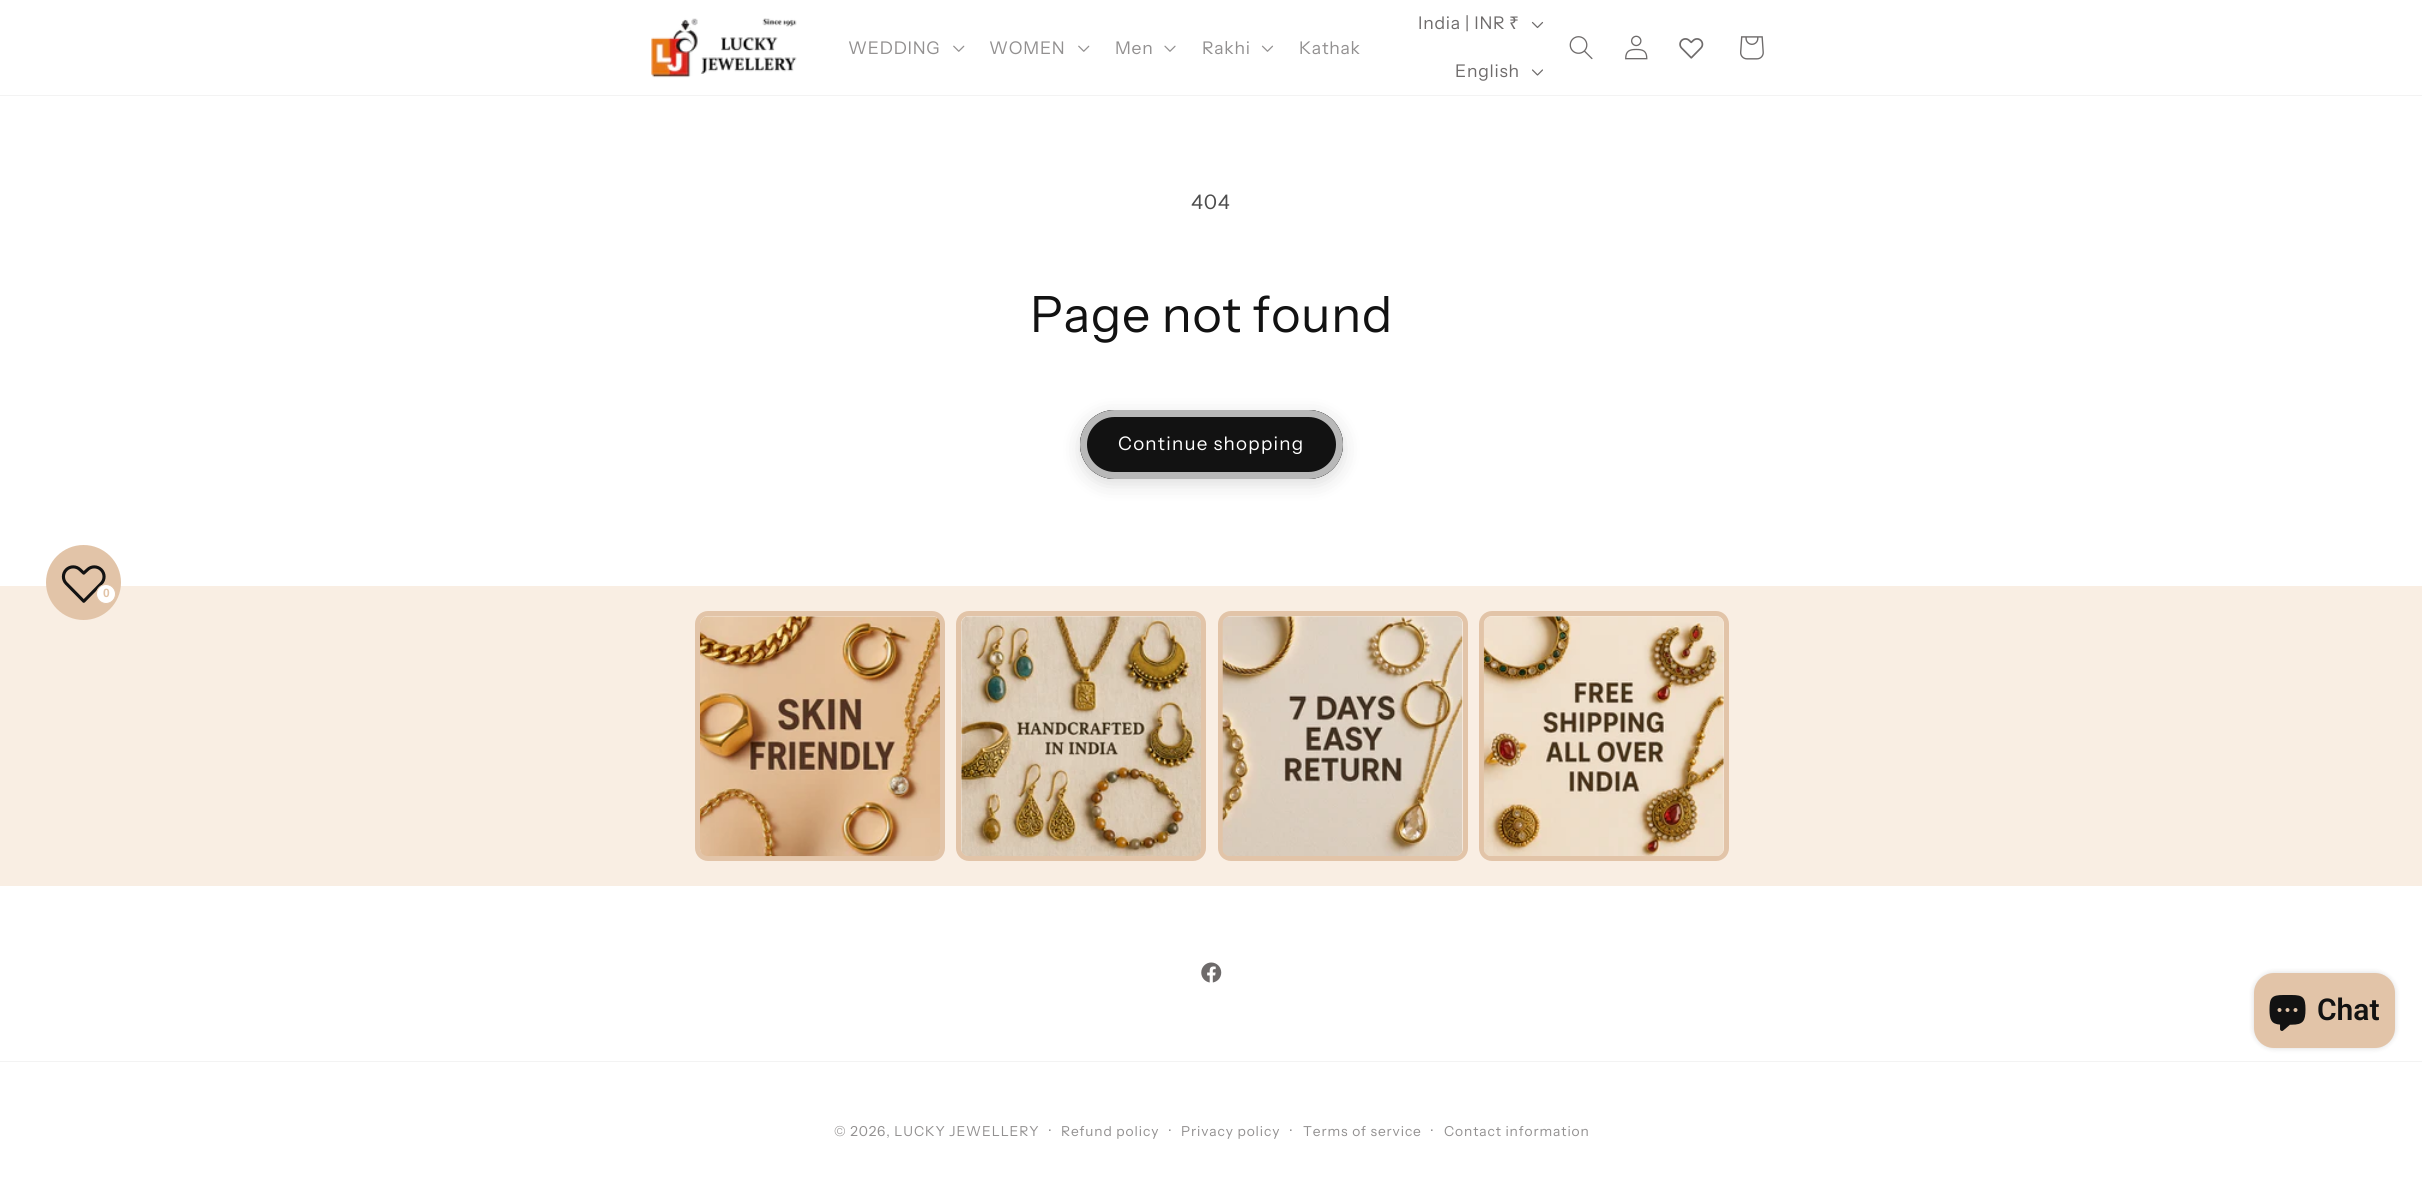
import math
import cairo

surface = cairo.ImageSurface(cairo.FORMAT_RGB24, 2422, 1203)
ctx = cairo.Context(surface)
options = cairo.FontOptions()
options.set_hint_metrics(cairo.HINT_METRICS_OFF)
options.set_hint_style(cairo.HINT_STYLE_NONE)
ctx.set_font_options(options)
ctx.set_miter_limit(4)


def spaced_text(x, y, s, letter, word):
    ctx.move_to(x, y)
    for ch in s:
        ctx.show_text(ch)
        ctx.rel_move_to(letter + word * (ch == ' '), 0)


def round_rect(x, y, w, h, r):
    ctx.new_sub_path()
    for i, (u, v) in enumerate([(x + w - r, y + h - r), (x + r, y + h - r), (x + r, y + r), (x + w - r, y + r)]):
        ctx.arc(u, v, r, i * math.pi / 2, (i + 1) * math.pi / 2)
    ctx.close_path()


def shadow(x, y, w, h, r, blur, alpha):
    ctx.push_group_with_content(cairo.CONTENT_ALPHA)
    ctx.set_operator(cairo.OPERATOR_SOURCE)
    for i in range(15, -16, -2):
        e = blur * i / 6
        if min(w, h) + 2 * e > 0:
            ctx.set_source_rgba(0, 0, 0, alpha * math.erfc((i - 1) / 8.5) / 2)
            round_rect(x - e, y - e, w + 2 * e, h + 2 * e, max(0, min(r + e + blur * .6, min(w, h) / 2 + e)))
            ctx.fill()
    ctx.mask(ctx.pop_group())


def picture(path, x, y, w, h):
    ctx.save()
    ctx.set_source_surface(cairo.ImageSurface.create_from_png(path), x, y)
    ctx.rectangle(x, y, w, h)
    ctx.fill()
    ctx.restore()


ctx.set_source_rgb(1, 1, 1)
ctx.paint()
ctx.set_source_rgb(0.953, 0.953, 0.953)
ctx.rectangle(0, 95, 2422, 1)
ctx.fill()
picture("img1.png", 651, 18, 146, 60)
ctx.select_font_face("Instrument Sans")
ctx.set_font_size(17.5)
ctx.set_source_rgb(0.573, 0.565, 0.565)
spaced_text(848, 54, "WEDDING", 0.75, 0)
picture("img2.png", 953, 45, 12, 7)
spaced_text(989, 54, "WOMEN", 0.75, 0)
picture("img2.png", 1078, 45, 12, 7)
spaced_text(1115, 54, "Men", 0.75, 0)
picture("img3.png", 1164, 45, 12, 7)
spaced_text(1202, 54, "Rakhi", 0.75, 0)
picture("img4.png", 1261, 45, 13, 7)
spaced_text(1299, 54, "Kathak", 0.75, 0)
ctx.set_source_rgb(0.431, 0.42, 0.42)
spaced_text(1418, 29, "India | INR", 0.75, 0)
ctx.select_font_face("Noto Sans")
spaced_text(1509, 29, "₹", 0.75, 0)
picture("img5.png", 1531, 21, 13, 8)
ctx.select_font_face("Instrument Sans")
spaced_text(1455, 77, "English", 0.75, 0)
picture("img6.png", 1532, 69, 11, 7)
picture("img7.png", 1569, 36, 24, 24)
picture("img8.png", 1625, 35, 23, 25)
picture("img9.png", 1679, 38, 25, 21)
picture("img10.png", 1740, 36, 24, 24)
ctx.set_font_size(20)
ctx.set_source_rgb(0.302, 0.302, 0.302)
spaced_text(1191, 209, "404", 0.75, 0)
ctx.set_font_size(50)
ctx.set_source_rgb(0.071, 0.071, 0.071)
spaced_text(1030, 332, "Page not found", 0.75, 0)
ctx.set_source_rgb(0.071, 0.071, 0.071)
shadow(1080, 415, 263, 69, 34.5, 9.5, 0.15)
ctx.set_source_rgb(0.071, 0.071, 0.071)
round_rect(1080, 410, 263, 69, 34.5)
ctx.fill()
round_rect(1083, 413, 257, 63, 31.5)
ctx.set_line_width(6)
ctx.stroke()
round_rect(1083.5, 413.5, 256, 62, 31)
ctx.set_source_rgba(1, 1, 1, 0.7)
ctx.set_line_width(7)
ctx.stroke()
ctx.set_font_size(18.75)
ctx.set_source_rgb(1, 1, 1)
spaced_text(1118, 450, "Continue shopping", 1.25, 0)
ctx.set_source_rgb(0.976, 0.933, 0.89)
ctx.rectangle(0, 586, 2422, 300)
ctx.fill()
round_rect(697.5, 613.5, 245, 245, 10.5)
ctx.set_source_rgb(0.886, 0.769, 0.659)
ctx.set_line_width(5)
ctx.stroke()
picture("img11.png", 700, 616, 240, 241)
round_rect(958.5, 613.5, 245, 245, 10.5)
ctx.stroke()
picture("img12.png", 961, 616, 240, 240)
round_rect(1220.5, 613.5, 245, 245, 10.5)
ctx.stroke()
picture("img13.png", 1222, 616, 241, 240)
round_rect(1481.5, 613.5, 245, 245, 10.5)
ctx.stroke()
picture("img14.png", 1483, 616, 241, 240)
ctx.arc(83.5, 582.5, 37.5, 0, 2 * math.pi)
ctx.fill()
picture("img15.png", 61, 565, 45, 38)
ctx.set_source_rgb(1, 1, 1)
ctx.arc(106, 594, 9.5, 0, 2 * math.pi)
ctx.fill_preserve()
ctx.set_source_rgb(0.886, 0.769, 0.659)
ctx.set_line_width(1)
ctx.stroke()
ctx.select_font_face("Liberation Sans", cairo.FONT_SLANT_NORMAL, cairo.FONT_WEIGHT_BOLD)
ctx.set_font_size(12)
ctx.move_to(103, 597)
ctx.show_text("0")
ctx.set_source_rgb(0, 0, 0)
shadow(2254, 973, 141, 75, 20, 3, 0.15)
ctx.set_source_rgb(0.886, 0.769, 0.659)
round_rect(2254, 973, 141, 75, 20)
ctx.fill()
picture("img16.png", 2269, 995, 37, 36)
ctx.select_font_face("Roboto SemiBold")
ctx.set_font_size(30)
ctx.set_source_rgb(0.071, 0.071, 0.071)
ctx.move_to(2317, 1020)
ctx.show_text("Chat")
picture("img17.png", 1201, 962, 21, 21)
ctx.set_source_rgb(0.953, 0.953, 0.953)
ctx.rectangle(0, 1061, 2422, 1)
ctx.fill()
ctx.select_font_face("Instrument Sans")
ctx.set_font_size(13.75)
ctx.set_source_rgb(0.573, 0.565, 0.565)
spaced_text(834, 1136, "© 2026, LUCKY JEWELLERY", 0.9, 0)
ctx.set_font_size(15)
spaced_text(1049, 1136, "·", 0.9, 0)
ctx.set_font_size(13.75)
spaced_text(1061, 1136, "Refund policy", 0.9, 0)
ctx.set_font_size(15)
spaced_text(1169, 1136, "·", 0.9, 0)
ctx.set_font_size(13.75)
spaced_text(1181, 1136, "Privacy policy", 0.9, 0)
ctx.set_font_size(15)
spaced_text(1290, 1136, "·", 0.9, 0)
ctx.set_font_size(13.75)
spaced_text(1303, 1136, "Terms of service", 0.9, 0)
ctx.set_font_size(15)
spaced_text(1431, 1136, "·", 0.9, 0)
ctx.set_font_size(13.75)
spaced_text(1444, 1136, "Contact information", 0.9, 0)
surface.write_to_png("page.png")
